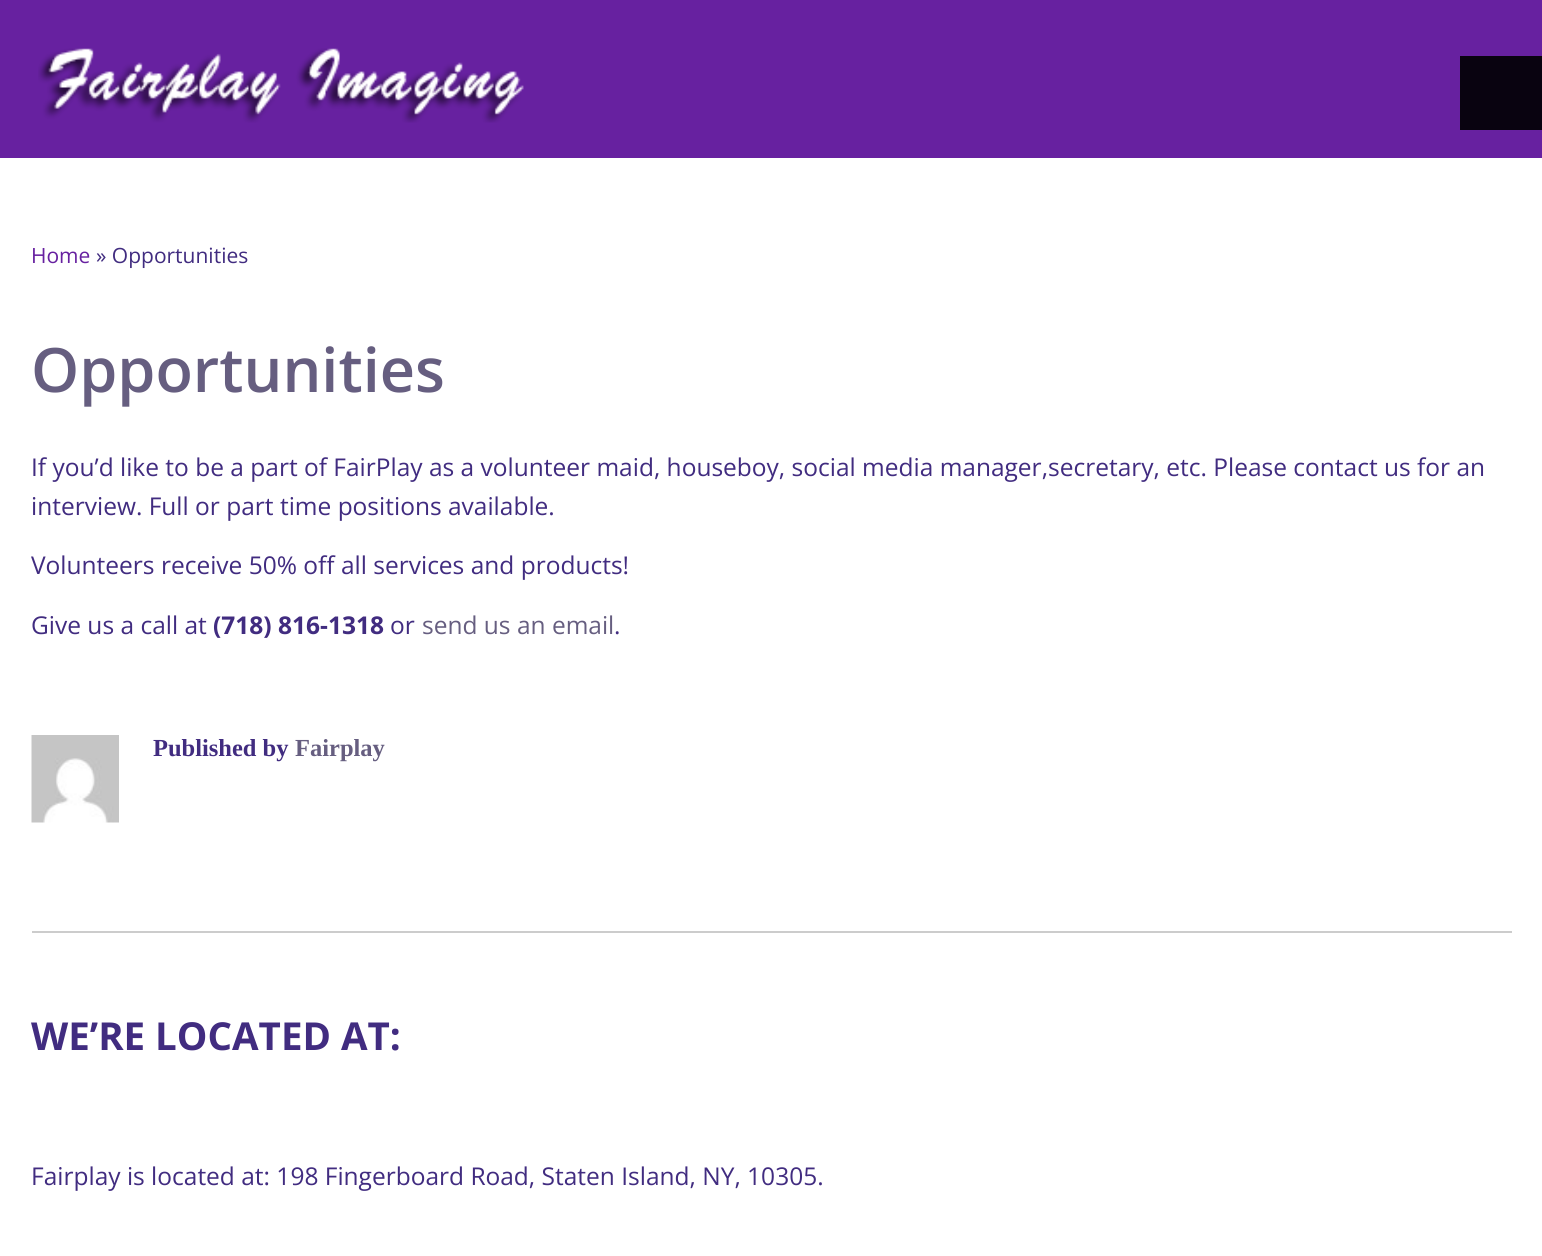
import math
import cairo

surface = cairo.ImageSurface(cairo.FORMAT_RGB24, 1542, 1256)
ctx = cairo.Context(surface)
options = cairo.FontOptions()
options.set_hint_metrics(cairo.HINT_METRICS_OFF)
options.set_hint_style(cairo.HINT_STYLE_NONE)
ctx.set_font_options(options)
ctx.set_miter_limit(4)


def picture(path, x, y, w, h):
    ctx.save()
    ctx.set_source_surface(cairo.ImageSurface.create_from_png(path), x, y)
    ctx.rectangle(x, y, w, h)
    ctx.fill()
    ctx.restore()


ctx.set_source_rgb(1, 1, 1)
ctx.paint()
ctx.set_source_rgb(0.404, 0.129, 0.627)
ctx.rectangle(0, 0, 1542, 158)
ctx.fill()
ctx.set_source_rgb(0.039, 0.012, 0.063)
ctx.rectangle(1460, 56, 82, 74)
ctx.fill()
picture("img1.png", 38, 48, 486, 75)
ctx.select_font_face("Open Sans")
ctx.set_font_size(21)
ctx.set_source_rgb(0.404, 0.129, 0.627)
ctx.move_to(31, 263)
ctx.show_text("Home")
ctx.set_source_rgb(0.255, 0.173, 0.502)
ctx.move_to(96, 263)
ctx.show_text("» Opportunities")
ctx.select_font_face("Open Sans SemiBold")
ctx.set_font_size(61.25)
ctx.set_source_rgb(0.4, 0.369, 0.502)
ctx.move_to(31, 392)
ctx.show_text("Opportunities")
ctx.select_font_face("Open Sans")
ctx.set_font_size(24.5)
ctx.set_source_rgb(0.255, 0.173, 0.502)
ctx.move_to(31, 476)
ctx.show_text("If you’d like to be a part of FairPlay as a volunteer maid, houseboy, social media manager,secretary, etc. Please contact us for an")
ctx.move_to(31, 515)
ctx.show_text("interview. Full or part time positions available.")
ctx.move_to(31, 574)
ctx.show_text("Volunteers receive 50% off all services and products!")
ctx.move_to(31, 634)
ctx.show_text("Give us a call at")
ctx.select_font_face("Open Sans", cairo.FONT_SLANT_NORMAL, cairo.FONT_WEIGHT_BOLD)
ctx.move_to(213, 634)
ctx.show_text("(718) 816-1318")
ctx.select_font_face("Open Sans")
ctx.move_to(390, 634)
ctx.show_text("or")
ctx.set_source_rgb(0.4, 0.369, 0.502)
ctx.move_to(422, 634)
ctx.show_text("send us an email")
ctx.set_source_rgb(0.255, 0.173, 0.502)
ctx.move_to(614, 634)
ctx.show_text(".")
picture("img2.png", 31, 735, 88, 88)
ctx.select_font_face("Liberation Serif", cairo.FONT_SLANT_NORMAL, cairo.FONT_WEIGHT_BOLD)
ctx.move_to(153, 756)
ctx.show_text("Published by")
ctx.set_source_rgb(0.4, 0.369, 0.502)
ctx.move_to(295, 756)
ctx.show_text("Fairplay")
ctx.set_source_rgb(0.8, 0.8, 0.8)
ctx.rectangle(32, 931, 1480, 2)
ctx.fill()
ctx.select_font_face("Open Sans", cairo.FONT_SLANT_NORMAL, cairo.FONT_WEIGHT_BOLD)
ctx.set_font_size(38.5)
ctx.set_source_rgb(0.255, 0.173, 0.502)
ctx.move_to(31, 1050)
ctx.show_text("WE’RE LOCATED AT:")
ctx.select_font_face("Open Sans")
ctx.set_font_size(24.5)
ctx.move_to(31, 1185)
ctx.show_text("Fairplay is located at: 198 Fingerboard Road, Staten Island, NY, 10305.")
surface.write_to_png("page.png")
